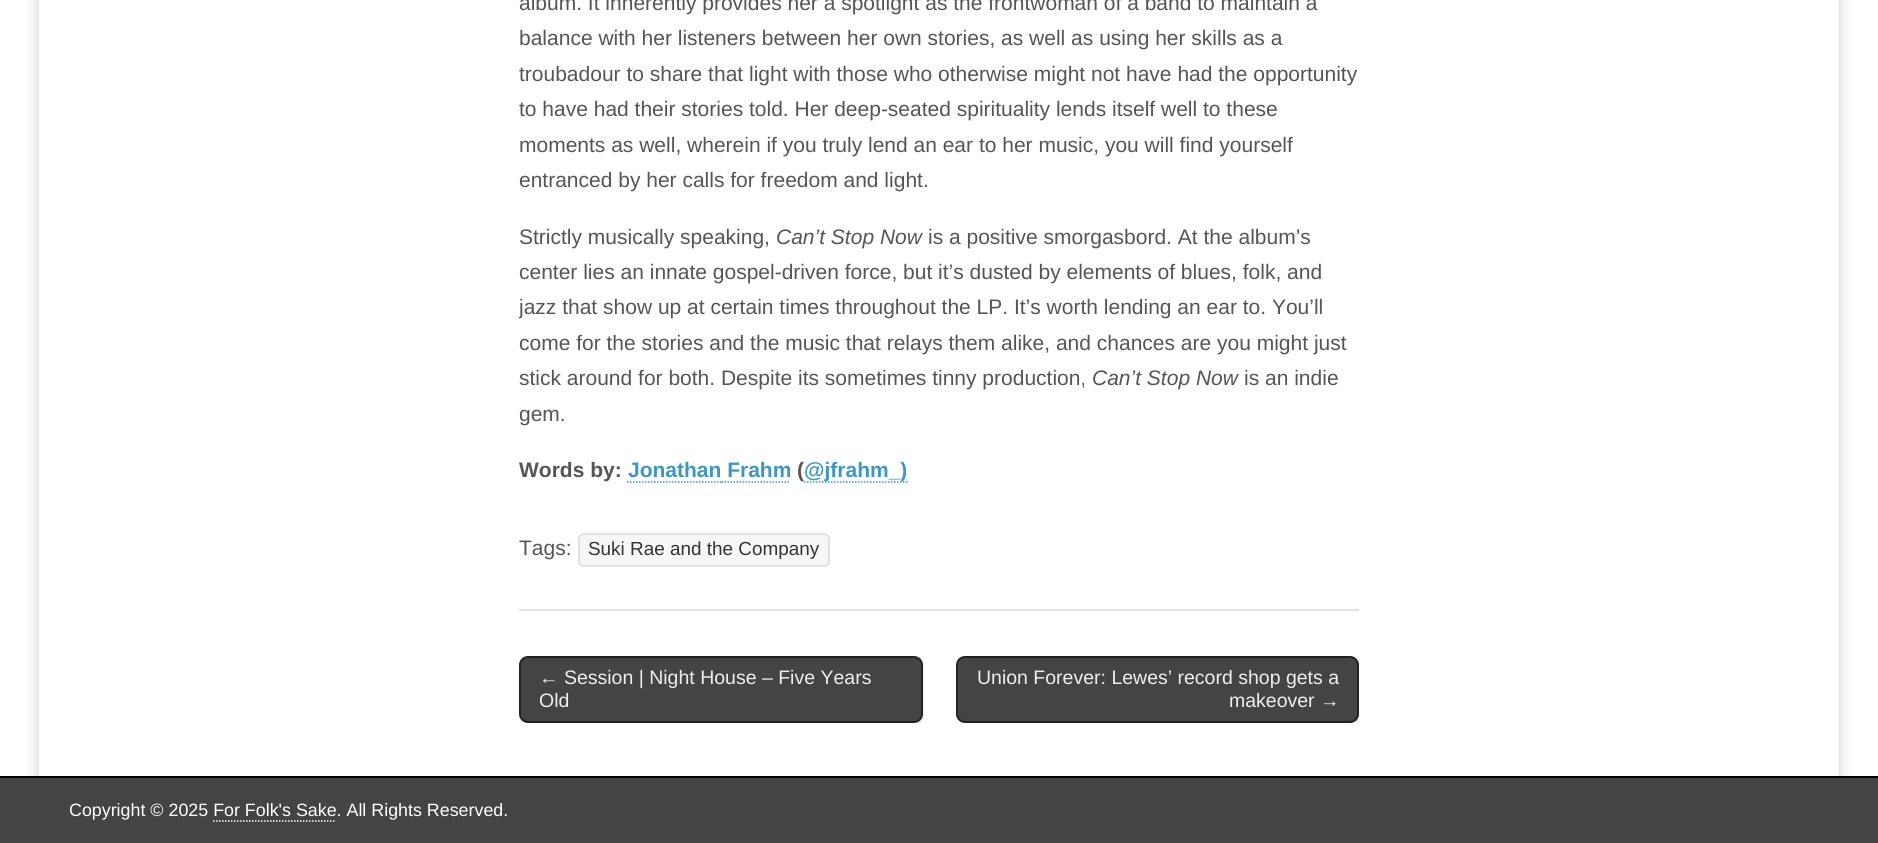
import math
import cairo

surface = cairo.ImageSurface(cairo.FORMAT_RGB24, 1878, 843)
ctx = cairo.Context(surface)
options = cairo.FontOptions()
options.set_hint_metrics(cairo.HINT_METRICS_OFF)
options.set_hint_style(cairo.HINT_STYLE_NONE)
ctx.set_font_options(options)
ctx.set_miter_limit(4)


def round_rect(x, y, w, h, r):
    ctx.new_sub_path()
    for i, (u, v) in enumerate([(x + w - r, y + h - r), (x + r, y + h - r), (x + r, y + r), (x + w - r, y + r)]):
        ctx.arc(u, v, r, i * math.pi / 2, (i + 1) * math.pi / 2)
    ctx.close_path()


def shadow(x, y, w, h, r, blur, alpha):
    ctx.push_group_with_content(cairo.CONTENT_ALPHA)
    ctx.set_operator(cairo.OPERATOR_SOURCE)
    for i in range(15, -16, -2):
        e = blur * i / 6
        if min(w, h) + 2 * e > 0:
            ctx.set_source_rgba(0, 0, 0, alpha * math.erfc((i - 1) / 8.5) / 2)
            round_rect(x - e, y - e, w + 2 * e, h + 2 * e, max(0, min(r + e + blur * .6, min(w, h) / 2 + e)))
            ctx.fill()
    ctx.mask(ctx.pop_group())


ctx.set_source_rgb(1, 1, 1)
ctx.paint()
ctx.save()
ctx.set_fill_rule(cairo.FILL_RULE_EVEN_ODD)
ctx.new_path()
ctx.move_to(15, 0)
ctx.line_to(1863, 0)
ctx.line_to(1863, 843)
ctx.line_to(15, 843)
ctx.close_path()
ctx.move_to(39, -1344)
ctx.line_to(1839, -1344)
ctx.line_to(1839, 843)
ctx.line_to(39, 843)
ctx.close_path()
ctx.clip()
ctx.set_source_rgb(0, 0, 0)
shadow(39, -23, 1800, 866, 0, 7.5, 0.2)
ctx.restore()
ctx.set_source_rgb(0.886, 0.886, 0.886)
ctx.rectangle(519, 609, 840, 2)
ctx.fill()
ctx.select_font_face("Liberation Sans")
ctx.set_font_size(21)
ctx.set_source_rgb(0.333, 0.333, 0.333)
ctx.move_to(519, 10)
ctx.show_text("album. It inherently provides her a spotlight as the frontwoman of a band to maintain a")
ctx.move_to(519, 45)
ctx.show_text("balance with her listeners between her own stories, as well as using her skills as a")
ctx.move_to(519, 81)
ctx.show_text("troubadour to share that light with those who otherwise might not have had the opportunity")
ctx.move_to(519, 116)
ctx.show_text("to have had their stories told. Her deep-seated spirituality lends itself well to these")
ctx.move_to(519, 152)
ctx.show_text("moments as well, wherein if you truly lend an ear to her music, you will find yourself")
ctx.move_to(519, 187)
ctx.show_text("entranced by her calls for freedom and light.")
ctx.move_to(519, 244)
ctx.show_text("Strictly musically speaking,")
ctx.select_font_face("Liberation Sans", cairo.FONT_SLANT_ITALIC)
ctx.move_to(776, 244)
ctx.show_text("Can’t Stop Now")
ctx.select_font_face("Liberation Sans")
ctx.move_to(928, 244)
ctx.show_text("is a positive smorgasbord. At the album’s")
ctx.move_to(519, 279)
ctx.show_text("center lies an innate gospel-driven force, but it’s dusted by elements of blues, folk, and")
ctx.save()
ctx.rectangle(519, 0, 840, 510)
ctx.clip()
ctx.move_to(519, 314)
ctx.show_text("jazz that show up at certain times throughout the LP. It’s worth lending an ear to. You’ll")
ctx.restore()
ctx.move_to(519, 350)
ctx.show_text("come for the stories and the music that relays them alike, and chances are you might just")
ctx.move_to(519, 385)
ctx.show_text("stick around for both. Despite its sometimes tinny production,")
ctx.select_font_face("Liberation Sans", cairo.FONT_SLANT_ITALIC)
ctx.move_to(1092, 385)
ctx.show_text("Can’t Stop Now")
ctx.select_font_face("Liberation Sans")
ctx.move_to(1244, 385)
ctx.show_text("is an indie")
ctx.move_to(519, 421)
ctx.show_text("gem.")
ctx.select_font_face("Liberation Sans", cairo.FONT_SLANT_NORMAL, cairo.FONT_WEIGHT_BOLD)
ctx.move_to(519, 477)
ctx.show_text("Words by:")
ctx.set_source_rgb(0.239, 0.592, 0.761)
ctx.move_to(628, 477)
ctx.show_text("Jonathan Frahm")
ctx.new_path()
ctx.move_to(627, 482)
ctx.line_to(721.5, 482)
ctx.set_line_width(1.5)
ctx.set_dash([1.5, 1.5])
ctx.stroke()
ctx.new_path()
ctx.move_to(721.5, 482)
ctx.line_to(790.5, 482)
ctx.stroke()
ctx.set_source_rgb(0.333, 0.333, 0.333)
ctx.move_to(797, 477)
ctx.show_text("(")
ctx.new_path()
ctx.move_to(804, 482)
ctx.line_to(907.5, 482)
ctx.set_source_rgb(0.239, 0.592, 0.761)
ctx.stroke()
ctx.move_to(804, 477)
ctx.show_text("@jfrahm_)")
ctx.select_font_face("Liberation Sans")
ctx.set_source_rgb(0.333, 0.333, 0.333)
ctx.move_to(519, 555)
ctx.show_text("Tags:")
ctx.set_source_rgb(0.965, 0.965, 0.965)
round_rect(579, 534, 250, 32, 5)
ctx.fill_preserve()
ctx.set_source_rgb(0.886, 0.886, 0.886)
ctx.set_line_width(2)
ctx.set_dash([])
ctx.stroke()
ctx.set_font_size(18.9)
ctx.set_source_rgb(0.2, 0.2, 0.2)
ctx.move_to(588, 555)
ctx.show_text("Suki Rae and the Company")
ctx.save()
ctx.rectangle(519, 656, 840, 67)
ctx.clip()
ctx.set_source_rgb(0.933, 0.933, 0.933)
ctx.new_path()
ctx.move_to(523, 721)
ctx.curve_to(524, 724, 527, 725, 530, 725)
ctx.line_to(915, 725)
ctx.curve_to(920, 725, 924, 721, 924, 716)
ctx.line_to(924, 666)
ctx.curve_to(924, 663, 923, 661, 921, 659)
ctx.curve_to(922, 660, 922, 662, 922, 664)
ctx.line_to(922, 714)
ctx.curve_to(922, 719, 918, 723, 914, 723)
ctx.line_to(528, 723)
ctx.curve_to(526, 723, 524, 722, 523, 721)
ctx.close_path()
ctx.fill()
ctx.restore()
ctx.set_source_rgb(0.267, 0.267, 0.267)
round_rect(520, 657, 402, 65, 8)
ctx.fill_preserve()
ctx.set_source_rgb(0.133, 0.133, 0.133)
ctx.stroke()
ctx.set_font_size(19.5)
ctx.set_source_rgb(0.933, 0.933, 0.933)
ctx.move_to(539, 684)
ctx.show_text("← Session | Night House – Five Years")
ctx.move_to(539, 707)
ctx.show_text("Old")
ctx.save()
ctx.rectangle(519, 656, 840, 67)
ctx.clip()
ctx.new_path()
ctx.move_to(958, 720)
ctx.curve_to(960, 723, 963, 725, 966, 725)
ctx.line_to(1352, 725)
ctx.curve_to(1357, 725, 1361, 721, 1361, 716)
ctx.line_to(1361, 666)
ctx.curve_to(1361, 663, 1359, 660, 1356, 658)
ctx.curve_to(1358, 660, 1359, 662, 1359, 664)
ctx.line_to(1359, 714)
ctx.curve_to(1359, 719, 1355, 723, 1350, 723)
ctx.line_to(964, 723)
ctx.curve_to(962, 723, 960, 722, 958, 720)
ctx.close_path()
ctx.fill()
ctx.restore()
ctx.set_source_rgb(0.267, 0.267, 0.267)
round_rect(957, 657, 401, 65, 8)
ctx.fill_preserve()
ctx.set_source_rgb(0.133, 0.133, 0.133)
ctx.stroke()
ctx.set_source_rgb(0.933, 0.933, 0.933)
ctx.move_to(977, 684)
ctx.show_text("Union Forever: Lewes’ record shop gets a")
ctx.move_to(1229, 707)
ctx.show_text("makeover →")
ctx.set_source_rgb(0.267, 0.267, 0.267)
ctx.rectangle(0, 778, 1878, 65)
ctx.fill()
ctx.set_source_rgb(0, 0, 0)
ctx.rectangle(0, 776, 1878, 2)
ctx.fill()
ctx.set_font_size(17.85)
ctx.set_source_rgb(1, 1, 1)
ctx.move_to(69, 816)
ctx.show_text("Copyright © 2025 For Folk's Sake. All Rights Reserved.")
ctx.new_path()
ctx.move_to(213, 821)
ctx.line_to(336, 821)
ctx.set_line_width(1.5)
ctx.set_dash([1.5, 1.5])
ctx.stroke()
surface.write_to_png("page.png")
